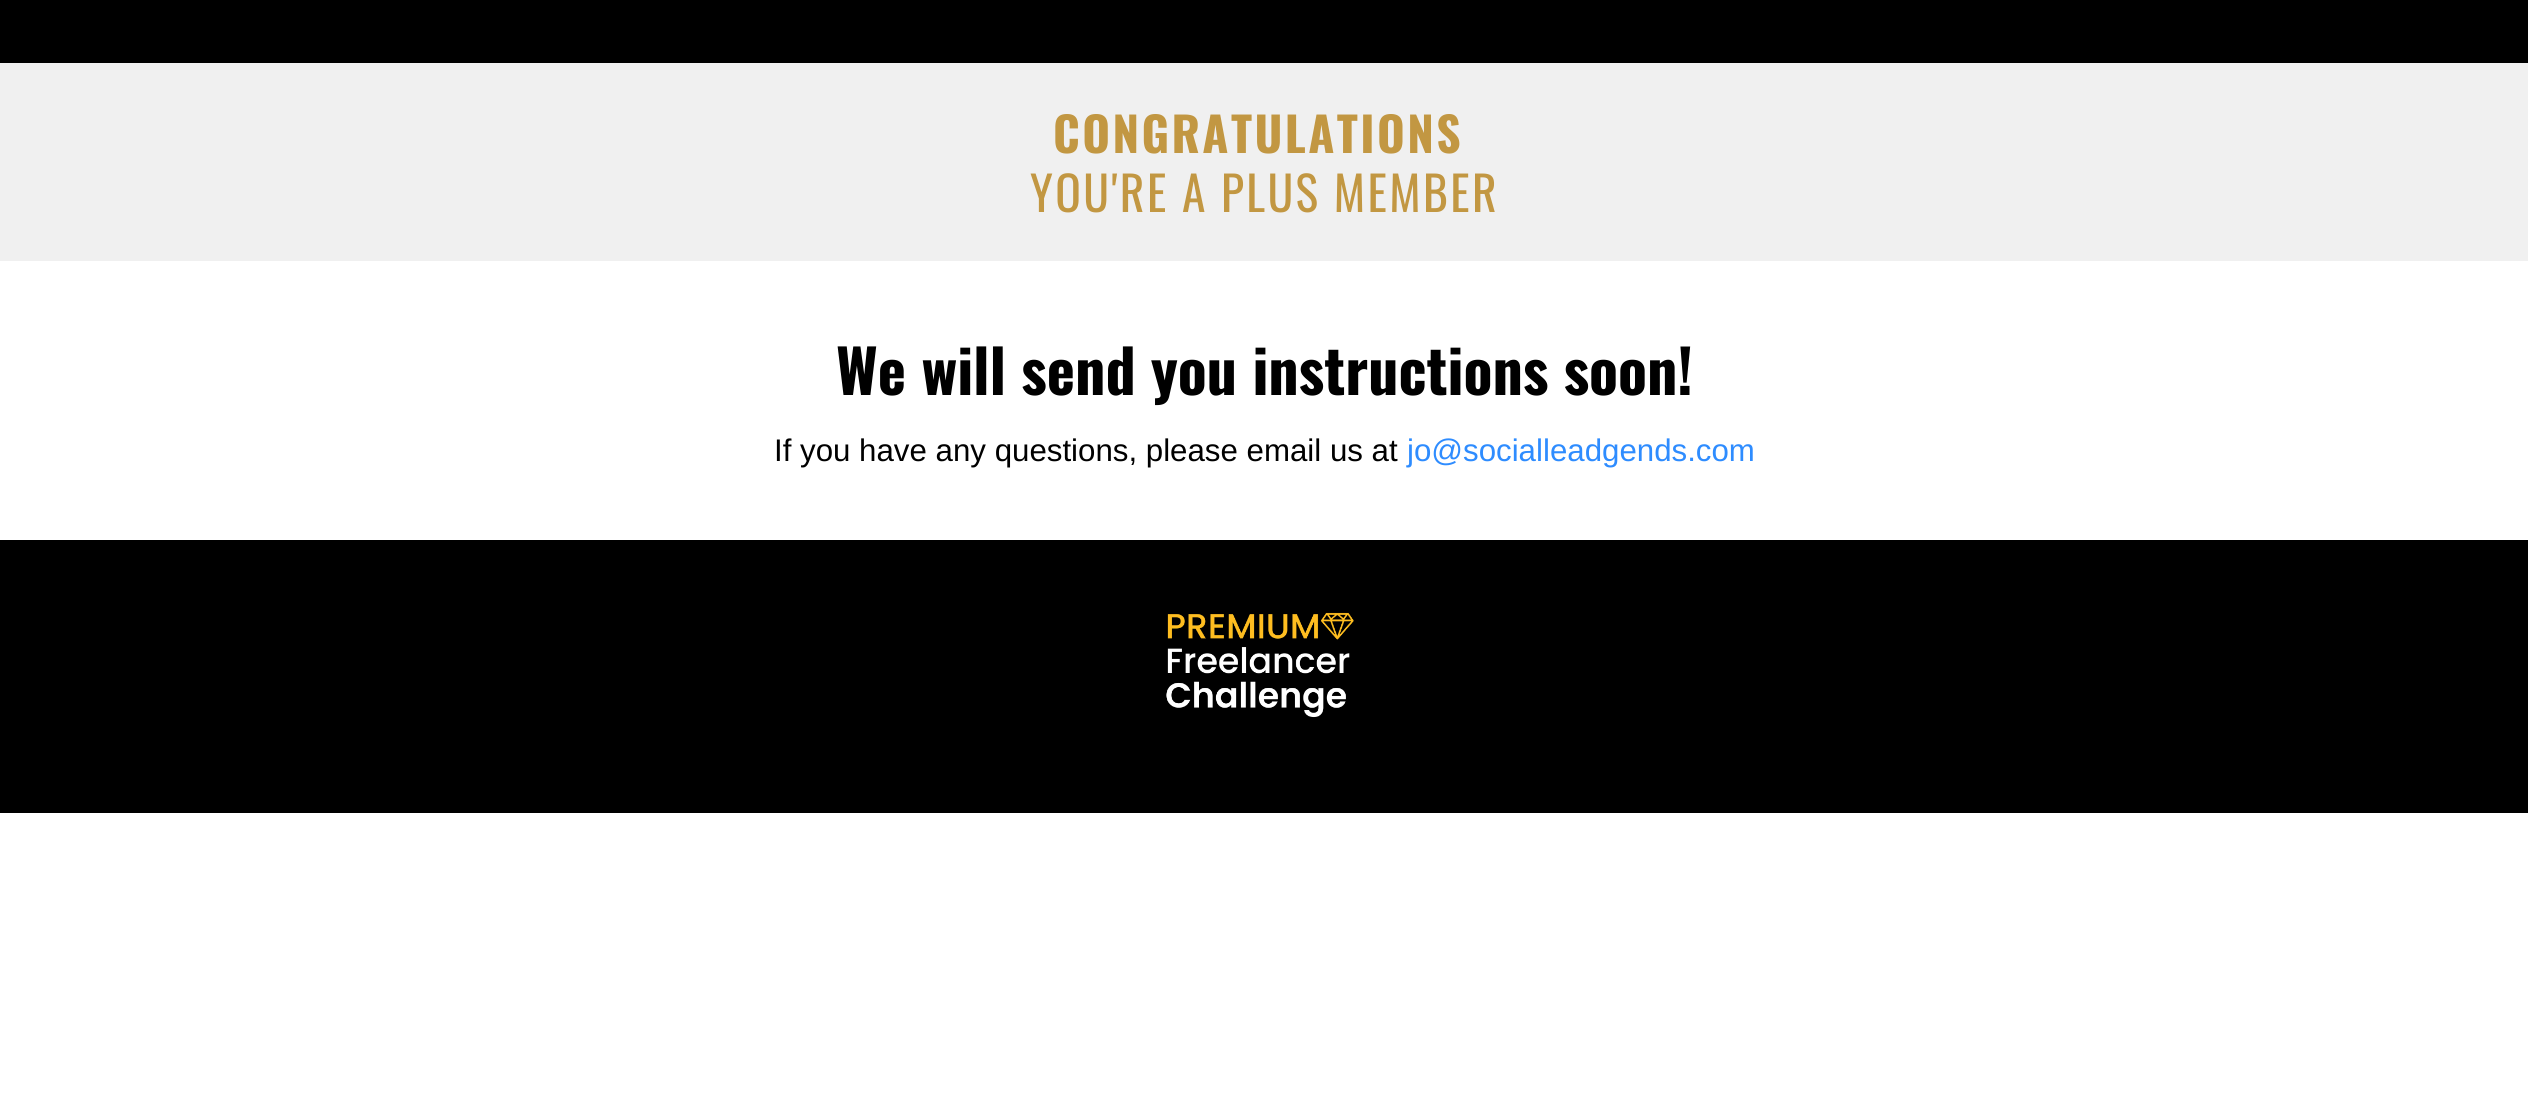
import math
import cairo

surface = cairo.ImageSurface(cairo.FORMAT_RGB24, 2528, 1097)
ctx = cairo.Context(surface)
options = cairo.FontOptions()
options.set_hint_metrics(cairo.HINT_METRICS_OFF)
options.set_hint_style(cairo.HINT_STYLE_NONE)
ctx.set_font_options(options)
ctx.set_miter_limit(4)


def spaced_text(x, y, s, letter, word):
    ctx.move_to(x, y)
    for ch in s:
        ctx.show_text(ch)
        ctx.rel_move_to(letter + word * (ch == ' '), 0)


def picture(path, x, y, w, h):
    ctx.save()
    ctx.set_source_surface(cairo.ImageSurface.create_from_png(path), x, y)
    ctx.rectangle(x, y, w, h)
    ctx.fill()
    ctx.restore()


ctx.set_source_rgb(1, 1, 1)
ctx.paint()
ctx.set_source_rgb(0, 0, 0)
ctx.rectangle(0, 0, 2528, 63)
ctx.fill()
ctx.set_source_rgb(0.941, 0.941, 0.941)
ctx.rectangle(0, 63, 2528, 198)
ctx.fill()
ctx.select_font_face("Oswald", cairo.FONT_SLANT_NORMAL, cairo.FONT_WEIGHT_BOLD)
ctx.set_font_size(47.5)
ctx.set_source_rgb(0.761, 0.592, 0.259)
spaced_text(1053, 153, "CONGRATULATIONS", 2.4, 0)
ctx.select_font_face("Oswald")
spaced_text(1030, 212, "YOU'RE A PLUS MEMBER", 2.4, 0)
ctx.select_font_face("Oswald", cairo.FONT_SLANT_NORMAL, cairo.FONT_WEIGHT_BOLD)
ctx.set_font_size(60)
ctx.set_source_rgb(0, 0, 0)
ctx.move_to(836, 395)
ctx.show_text("We will send you instructions soon!")
ctx.select_font_face("Liberation Sans")
ctx.set_font_size(31.25)
ctx.move_to(774, 461)
ctx.show_text("If you have any questions, please email us at")
ctx.set_source_rgb(0.18, 0.549, 1)
ctx.move_to(1407, 461)
ctx.show_text("jo@socialleadgends.com")
ctx.set_source_rgb(0, 0, 0)
ctx.rectangle(0, 540, 2528, 273)
ctx.fill()
picture("img1.png", 1166, 612, 188, 106)
surface.write_to_png("page.png")
